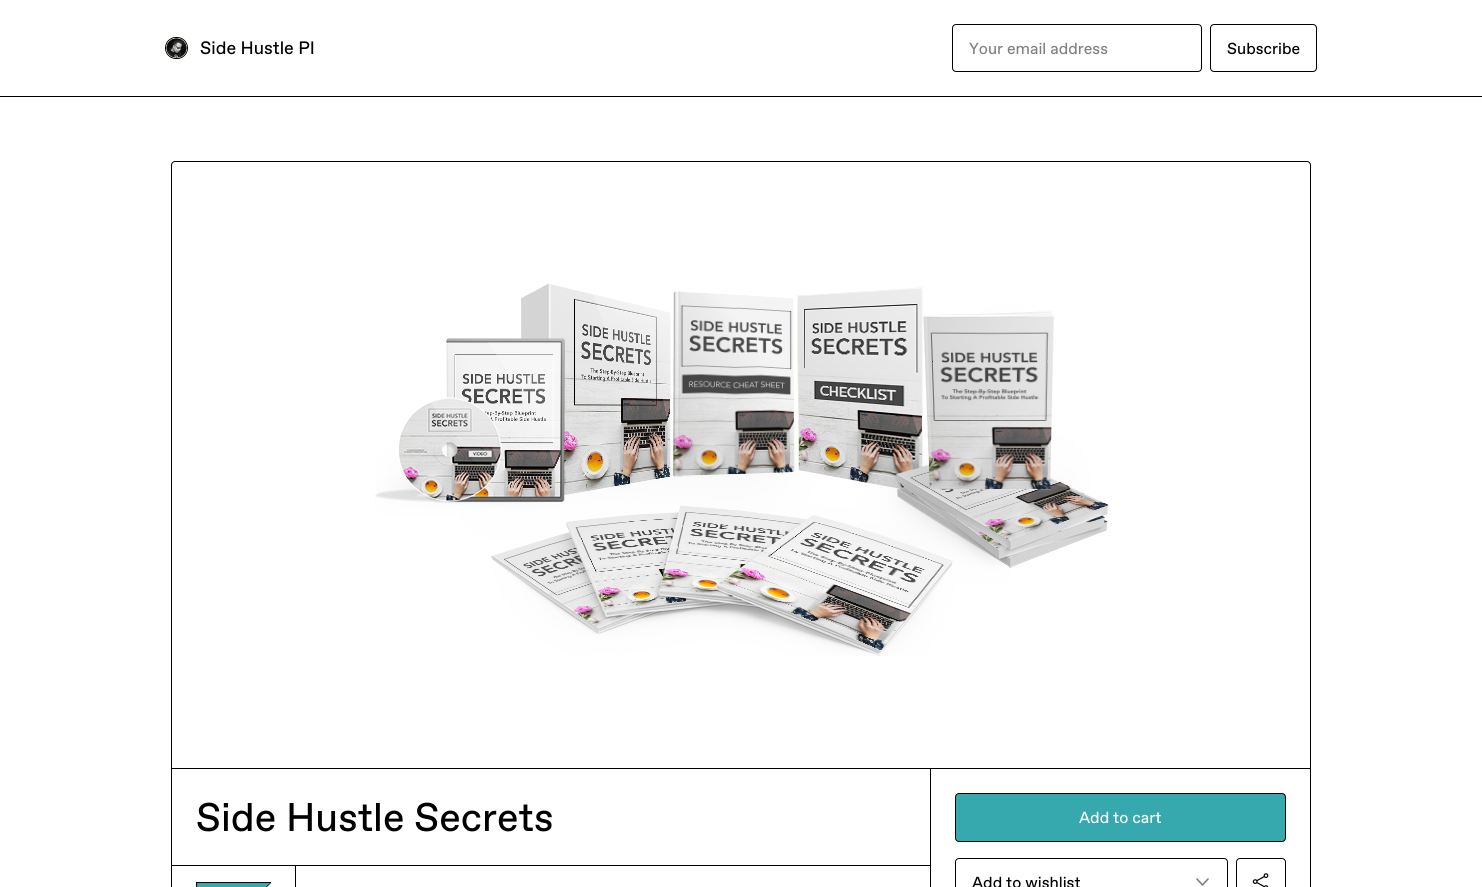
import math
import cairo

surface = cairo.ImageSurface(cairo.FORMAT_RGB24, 1482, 887)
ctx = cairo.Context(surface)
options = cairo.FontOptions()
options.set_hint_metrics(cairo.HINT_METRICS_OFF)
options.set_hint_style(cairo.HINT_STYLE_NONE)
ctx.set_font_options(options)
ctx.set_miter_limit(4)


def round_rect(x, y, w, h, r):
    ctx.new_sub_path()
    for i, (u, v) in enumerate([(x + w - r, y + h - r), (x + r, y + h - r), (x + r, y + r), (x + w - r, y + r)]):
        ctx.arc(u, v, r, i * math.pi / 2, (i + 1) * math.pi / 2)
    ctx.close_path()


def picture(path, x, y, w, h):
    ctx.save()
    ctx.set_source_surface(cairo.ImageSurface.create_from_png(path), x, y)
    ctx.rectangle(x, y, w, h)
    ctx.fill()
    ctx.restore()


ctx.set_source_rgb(1, 1, 1)
ctx.paint()
ctx.set_source_rgb(0, 0, 0)
ctx.rectangle(0, 96, 1482, 1)
ctx.fill()
round_rect(165.5, 37.5, 22, 21, 10.5)
ctx.set_line_width(1)
ctx.stroke()
picture("img1.png", 166, 38, 21, 20)
ctx.select_font_face("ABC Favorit")
ctx.set_font_size(18)
ctx.move_to(200, 54)
ctx.show_text("Side Hustle PI")
round_rect(952.5, 24.5, 249, 47, 3.5)
ctx.stroke()
ctx.set_font_size(16)
ctx.set_source_rgb(0.502, 0.502, 0.502)
ctx.move_to(969, 54)
ctx.show_text("Your email address")
round_rect(1210.5, 24.5, 106, 47, 3.5)
ctx.set_source_rgb(0, 0, 0)
ctx.stroke()
ctx.move_to(1227, 54)
ctx.show_text("Subscribe")
round_rect(171.5, 161.5, 1139, 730, 3.5)
ctx.stroke()
ctx.rectangle(172, 768, 1138, 1)
ctx.fill()
picture("img2.png", 375, 283, 734, 373)
ctx.rectangle(930, 769, 1, 118)
ctx.fill()
ctx.set_font_size(40)
ctx.move_to(196, 831)
ctx.show_text("Side Hustle Secrets")
ctx.rectangle(296, 865, 634, 1)
ctx.fill()
ctx.rectangle(171.5, 865.5, 124, 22)
ctx.stroke()
ctx.rectangle(196, 882, 75, 1)
ctx.fill()
ctx.rectangle(196, 882, 1, 5)
ctx.fill()
ctx.set_source_rgb(0.212, 0.663, 0.682)
ctx.rectangle(197, 883, 58, 4)
ctx.fill()
ctx.set_source_rgb(0, 0, 0)
ctx.new_path()
ctx.move_to(255, 883)
ctx.line_to(271, 883)
ctx.line_to(256, 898)
ctx.close_path()
ctx.fill()
ctx.set_source_rgb(0.212, 0.663, 0.682)
ctx.new_path()
ctx.move_to(254, 883)
ctx.line_to(270, 883)
ctx.line_to(255, 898)
ctx.close_path()
ctx.fill()
round_rect(955.5, 793.5, 330, 48, 3.5)
ctx.fill_preserve()
ctx.set_source_rgb(0, 0, 0)
ctx.stroke()
ctx.set_font_size(16)
ctx.set_source_rgb(1, 1, 1)
ctx.move_to(1079, 823)
ctx.show_text("Add to cart")
round_rect(955.5, 858.5, 272, 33, 3.5)
ctx.set_source_rgb(0, 0, 0)
ctx.stroke()
ctx.move_to(972, 888)
ctx.show_text("Add to wishlist")
ctx.new_path()
ctx.move_to(1208, 879)
ctx.line_to(1202.5, 885)
ctx.line_to(1197, 879)
ctx.set_source_rgb(0.502, 0.502, 0.502)
ctx.set_line_width(1.6)
ctx.set_line_cap(cairo.LINE_CAP_ROUND)
ctx.set_line_join(cairo.LINE_JOIN_ROUND)
ctx.stroke()
round_rect(1236.5, 858.5, 49, 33, 3.5)
ctx.set_source_rgb(0, 0, 0)
ctx.set_line_width(1)
ctx.set_line_cap(cairo.LINE_CAP_BUTT)
ctx.set_line_join(cairo.LINE_JOIN_MITER)
ctx.stroke()
picture("img3.png", 1252, 873, 17, 14)
surface.write_to_png("page.png")
